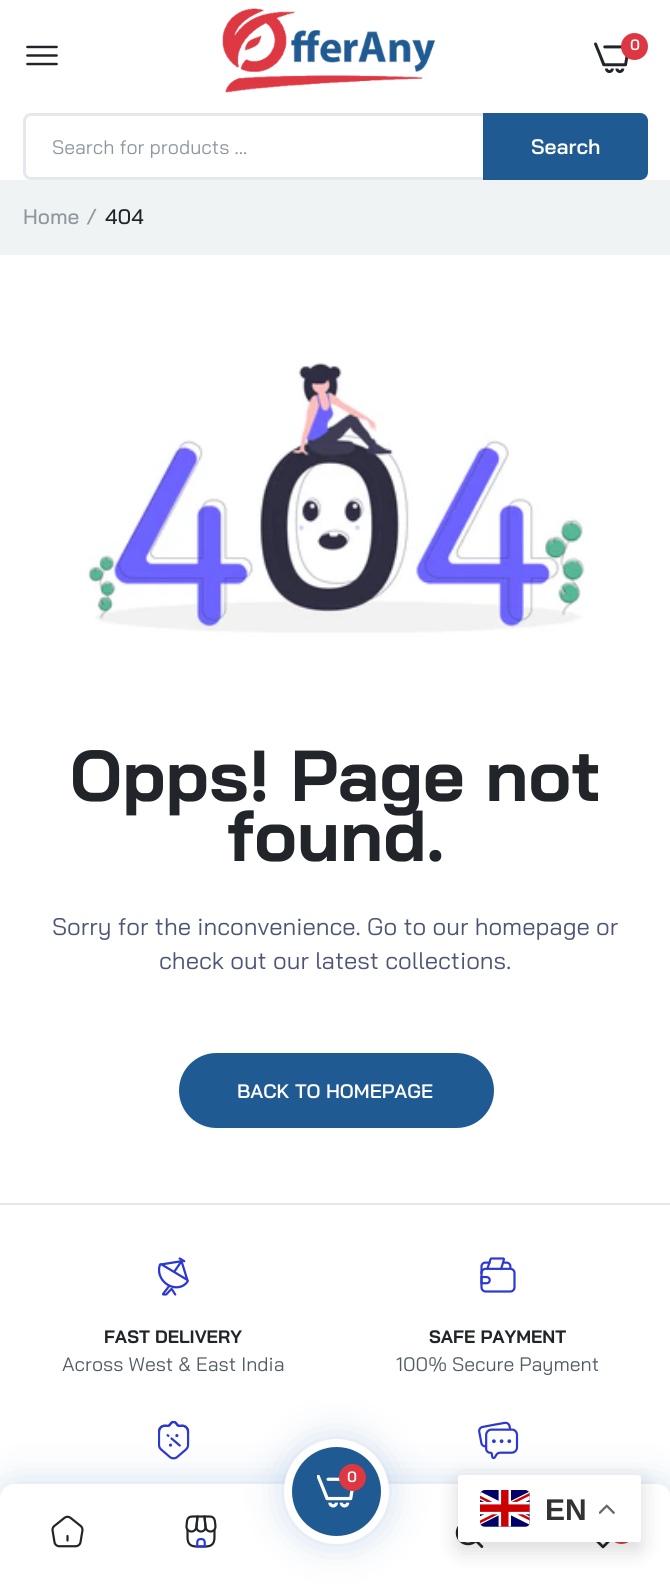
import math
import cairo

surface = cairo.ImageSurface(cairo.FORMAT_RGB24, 670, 1584)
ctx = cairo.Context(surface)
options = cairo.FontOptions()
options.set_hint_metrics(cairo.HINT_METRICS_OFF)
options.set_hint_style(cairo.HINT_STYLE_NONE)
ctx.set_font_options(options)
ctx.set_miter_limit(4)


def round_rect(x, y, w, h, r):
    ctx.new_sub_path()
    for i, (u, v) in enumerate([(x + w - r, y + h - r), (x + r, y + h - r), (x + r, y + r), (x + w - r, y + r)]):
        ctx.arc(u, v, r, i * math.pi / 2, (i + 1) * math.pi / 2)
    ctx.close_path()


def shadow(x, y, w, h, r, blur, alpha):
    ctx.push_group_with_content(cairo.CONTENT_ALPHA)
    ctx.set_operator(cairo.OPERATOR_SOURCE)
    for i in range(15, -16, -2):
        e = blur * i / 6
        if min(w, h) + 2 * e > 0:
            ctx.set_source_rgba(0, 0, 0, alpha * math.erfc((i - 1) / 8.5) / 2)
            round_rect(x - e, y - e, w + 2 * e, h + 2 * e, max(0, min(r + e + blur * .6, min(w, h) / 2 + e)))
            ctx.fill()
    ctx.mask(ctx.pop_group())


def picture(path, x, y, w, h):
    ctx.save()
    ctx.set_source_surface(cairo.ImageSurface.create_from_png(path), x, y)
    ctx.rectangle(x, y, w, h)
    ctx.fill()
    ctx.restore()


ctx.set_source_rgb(0.941, 0.953, 0.957)
ctx.paint()
ctx.set_source_rgb(1, 1, 1)
ctx.rectangle(0, 0, 670, 180)
ctx.fill()
picture("img1.png", 26, 45, 32, 21)
picture("img2.png", 222, 8, 213, 85)
picture("img3.png", 594, 42, 35, 31)
ctx.set_source_rgb(0.867, 0.22, 0.259)
ctx.arc(634.5, 46.5, 13.5, 0, 2 * math.pi)
ctx.fill()
ctx.select_font_face("Bai Jamjuree SemiBold")
ctx.set_font_size(15)
ctx.set_source_rgb(1, 1, 1)
ctx.move_to(630, 50)
ctx.show_text("0")
round_rect(24.5, 114.5, 622, 64, 6.5)
ctx.set_source_rgb(0.898, 0.91, 0.925)
ctx.set_line_width(3)
ctx.stroke()
ctx.select_font_face("Bai Jamjuree")
ctx.set_font_size(19.5)
ctx.set_source_rgb(0.553, 0.592, 0.62)
ctx.move_to(52, 154)
ctx.show_text("Search for products ...")
ctx.set_source_rgb(0.125, 0.353, 0.576)
ctx.new_path()
ctx.move_to(483, 113)
ctx.line_to(640, 113)
ctx.curve_to(644.5, 113, 648, 116.5, 648, 121)
ctx.line_to(648, 172)
ctx.curve_to(648, 176.5, 644.5, 180, 640, 180)
ctx.line_to(483, 180)
ctx.close_path()
ctx.fill()
ctx.select_font_face("Bai Jamjuree SemiBold")
ctx.set_font_size(21)
ctx.set_source_rgb(1, 1, 1)
ctx.move_to(531, 154)
ctx.show_text("Search")
ctx.select_font_face("Bai Jamjuree Medium")
ctx.set_source_rgb(0.553, 0.592, 0.62)
ctx.move_to(23, 224)
ctx.show_text("Home")
ctx.move_to(86, 224)
ctx.show_text("/")
ctx.set_source_rgb(0.129, 0.145, 0.161)
ctx.move_to(105, 224)
ctx.show_text("404")
ctx.set_source_rgb(1, 1, 1)
ctx.rectangle(0, 255, 670, 948)
ctx.fill()
picture("img4.png", 87, 362, 498, 276)
ctx.select_font_face("Bai Jamjuree", cairo.FONT_SLANT_NORMAL, cairo.FONT_WEIGHT_BOLD)
ctx.set_font_size(72)
ctx.set_source_rgb(0.129, 0.145, 0.161)
ctx.move_to(70, 801)
ctx.show_text("Opps! Page not")
ctx.move_to(227, 861)
ctx.show_text("found.")
ctx.select_font_face("Bai Jamjuree")
ctx.set_font_size(24)
ctx.set_source_rgb(0.302, 0.333, 0.455)
ctx.move_to(52, 935)
ctx.show_text("Sorry for the inconvenience. Go to our homepage or")
ctx.move_to(159, 969)
ctx.show_text("check out our latest collections.")
ctx.set_source_rgb(0.125, 0.353, 0.576)
round_rect(179, 1053, 315, 75, 37.5)
ctx.fill()
ctx.select_font_face("Bai Jamjuree SemiBold")
ctx.set_font_size(19.5)
ctx.set_source_rgb(1, 1, 1)
ctx.move_to(237, 1098)
ctx.show_text("BACK TO HOMEPAGE")
ctx.rectangle(0, 1205, 670, 294)
ctx.fill()
ctx.set_source_rgb(0.898, 0.91, 0.925)
ctx.rectangle(0, 1203, 670, 2)
ctx.fill()
picture("img5.png", 158, 1257, 31, 39)
ctx.select_font_face("Bai Jamjuree", cairo.FONT_SLANT_NORMAL, cairo.FONT_WEIGHT_BOLD)
ctx.set_font_size(18)
ctx.set_source_rgb(0.129, 0.145, 0.161)
ctx.move_to(104, 1343)
ctx.show_text("FAST DELIVERY")
ctx.select_font_face("Bai Jamjuree")
ctx.set_font_size(19.5)
ctx.set_source_rgb(0.318, 0.365, 0.4)
ctx.move_to(62, 1371)
ctx.show_text("Across West & East India")
picture("img6.png", 480, 1257, 36, 36)
ctx.select_font_face("Bai Jamjuree", cairo.FONT_SLANT_NORMAL, cairo.FONT_WEIGHT_BOLD)
ctx.set_font_size(18)
ctx.set_source_rgb(0.129, 0.145, 0.161)
ctx.move_to(429, 1343)
ctx.show_text("SAFE PAYMENT")
ctx.select_font_face("Bai Jamjuree")
ctx.set_font_size(19.5)
ctx.set_source_rgb(0.318, 0.365, 0.4)
ctx.move_to(396, 1371)
ctx.show_text("100% Secure Payment")
picture("img7.png", 158, 1421, 32, 39)
picture("img8.png", 478, 1421, 41, 39)
ctx.set_source_rgb(0.282, 0.482, 0.718)
shadow(0, 1484, 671, 100, 15, 19, 0.25)
ctx.set_source_rgb(1, 1, 1)
ctx.new_path()
ctx.move_to(15, 1484)
ctx.line_to(656, 1484)
ctx.curve_to(664.5, 1484, 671, 1490.5, 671, 1499)
ctx.line_to(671, 1584)
ctx.line_to(0, 1584)
ctx.line_to(0, 1499)
ctx.curve_to(0, 1490.5, 6.5, 1484, 15, 1484)
ctx.close_path()
ctx.fill()
ctx.set_source_rgb(0.282, 0.482, 0.718)
shadow(284, 1439, 105, 105, 52.5, 19, 0.25)
ctx.set_source_rgb(0.125, 0.353, 0.576)
ctx.arc(336.5, 1491.5, 48.5, 0, 2 * math.pi)
ctx.fill_preserve()
ctx.set_source_rgb(1, 1, 1)
ctx.set_line_width(8)
ctx.stroke()
picture("img9.png", 317, 1475, 37, 33)
ctx.set_source_rgb(0.867, 0.22, 0.259)
ctx.arc(352.5, 1477.5, 13.5, 0, 2 * math.pi)
ctx.fill()
ctx.select_font_face("Bai Jamjuree SemiBold")
ctx.set_font_size(15)
ctx.set_source_rgb(1, 1, 1)
ctx.move_to(347, 1482)
ctx.show_text("0")
picture("img10.png", 51, 1515, 33, 33)
picture("img11.png", 185, 1515, 32, 33)
picture("img12.png", 455, 1526, 29, 22)
picture("img13.png", 596, 1542, 14, 7)
ctx.set_source_rgb(0.867, 0.22, 0.259)
ctx.arc(621.5, 1530.5, 13.5, 0, 2 * math.pi)
ctx.fill()
ctx.set_source_rgb(0, 0, 0)
shadow(458, 1482, 183, 68, 3, 11, 0.15)
ctx.set_source_rgb(1, 1, 1)
round_rect(458, 1475, 183, 67, 3)
ctx.fill()
picture("img14.png", 480, 1490, 50, 37)
ctx.select_font_face("Liberation Sans", cairo.FONT_SLANT_NORMAL, cairo.FONT_WEIGHT_BOLD)
ctx.set_font_size(30)
ctx.set_source_rgb(0.2, 0.2, 0.2)
ctx.move_to(545, 1520)
ctx.show_text("EN")
picture("img15.png", 599, 1504, 16, 10)
surface.write_to_png("page.png")
